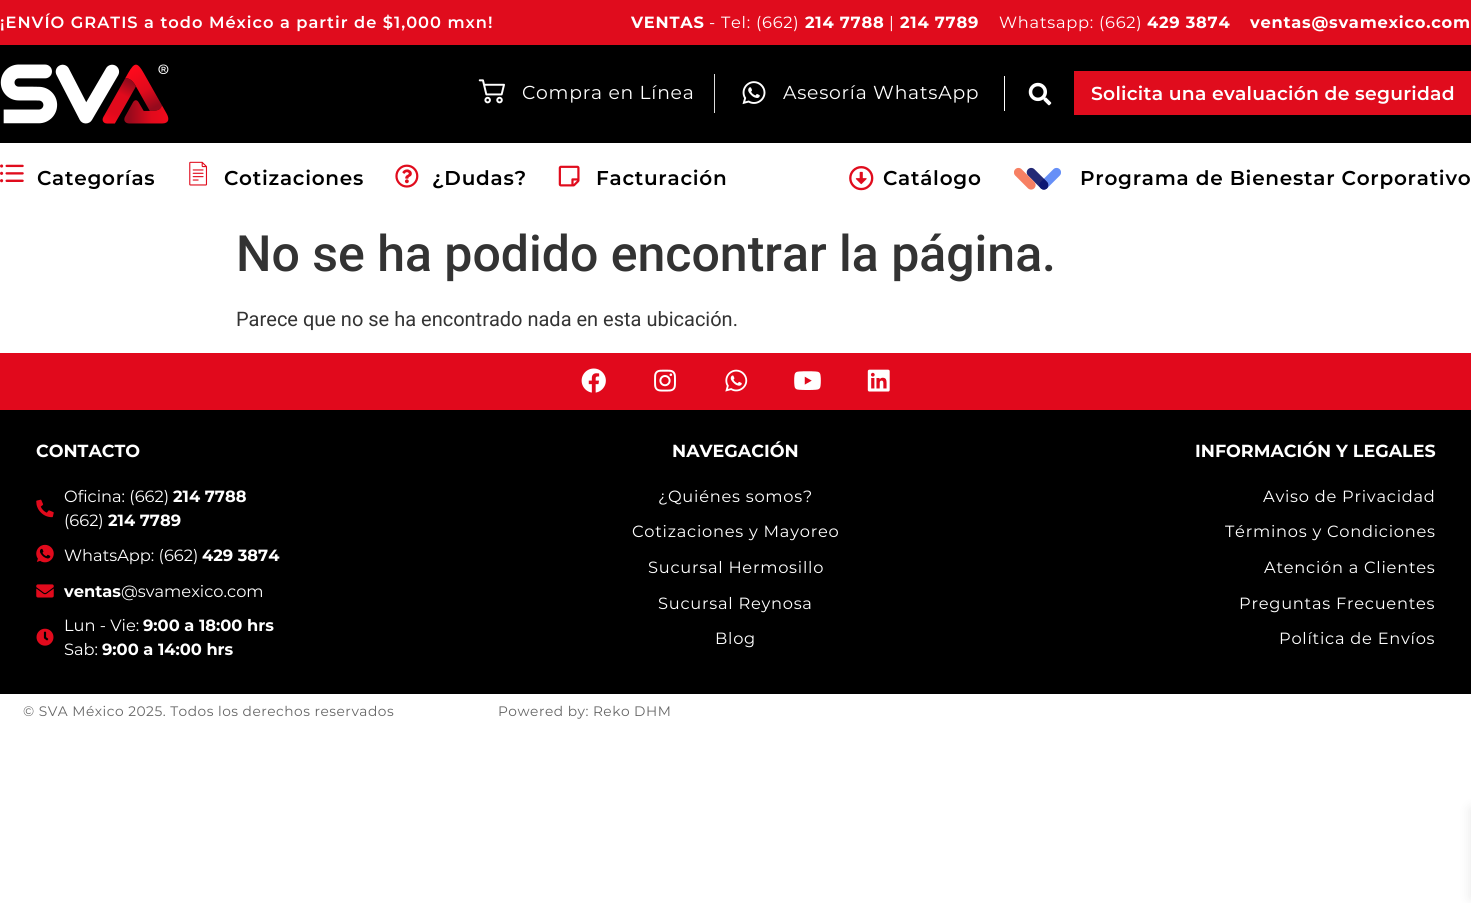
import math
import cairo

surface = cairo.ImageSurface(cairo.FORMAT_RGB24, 1471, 903)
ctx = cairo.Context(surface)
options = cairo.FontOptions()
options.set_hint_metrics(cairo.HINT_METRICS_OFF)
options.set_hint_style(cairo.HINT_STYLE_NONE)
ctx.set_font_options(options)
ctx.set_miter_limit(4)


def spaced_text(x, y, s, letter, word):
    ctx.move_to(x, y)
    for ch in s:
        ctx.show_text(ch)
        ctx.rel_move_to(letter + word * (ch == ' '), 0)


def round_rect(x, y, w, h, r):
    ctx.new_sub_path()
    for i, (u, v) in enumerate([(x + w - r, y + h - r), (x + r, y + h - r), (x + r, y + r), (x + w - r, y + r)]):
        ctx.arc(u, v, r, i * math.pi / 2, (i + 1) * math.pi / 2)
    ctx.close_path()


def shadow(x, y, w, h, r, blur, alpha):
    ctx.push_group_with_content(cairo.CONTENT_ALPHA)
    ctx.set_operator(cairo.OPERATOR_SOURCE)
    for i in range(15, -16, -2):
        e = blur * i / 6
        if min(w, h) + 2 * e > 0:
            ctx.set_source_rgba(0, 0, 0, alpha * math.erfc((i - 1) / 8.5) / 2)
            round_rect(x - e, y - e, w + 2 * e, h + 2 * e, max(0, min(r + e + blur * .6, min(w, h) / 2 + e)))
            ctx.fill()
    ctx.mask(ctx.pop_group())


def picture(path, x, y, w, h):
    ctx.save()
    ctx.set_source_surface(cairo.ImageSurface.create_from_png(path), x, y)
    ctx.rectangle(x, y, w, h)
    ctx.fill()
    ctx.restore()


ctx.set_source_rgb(1, 1, 1)
ctx.paint()
ctx.set_source_rgb(0.878, 0.047, 0.114)
ctx.rectangle(0, 0, 1471, 45)
ctx.fill()
ctx.select_font_face("Montserrat SemiBold")
ctx.set_font_size(16.25)
ctx.set_source_rgb(1, 1, 1)
spaced_text(0, 28, "¡ENVÍO GRATIS a todo México a partir de $1,000 mxn!", 1, 0)
ctx.select_font_face("Montserrat", cairo.FONT_SLANT_NORMAL, cairo.FONT_WEIGHT_BOLD)
spaced_text(631, 28, "VENTAS", 0.75, 0)
ctx.select_font_face("Montserrat")
spaced_text(709, 28, "- Tel: (662)", 0.75, 0)
ctx.select_font_face("Montserrat", cairo.FONT_SLANT_NORMAL, cairo.FONT_WEIGHT_BOLD)
spaced_text(805, 28, "214 7788", 0.75, 0)
ctx.select_font_face("Montserrat")
spaced_text(889, 28, "|", 0.75, 0)
ctx.select_font_face("Montserrat", cairo.FONT_SLANT_NORMAL, cairo.FONT_WEIGHT_BOLD)
spaced_text(900, 28, "214 7789", 0.75, 0)
ctx.select_font_face("Montserrat")
spaced_text(999, 28, "Whatsapp: (662)", 0.75, 0)
ctx.select_font_face("Montserrat", cairo.FONT_SLANT_NORMAL, cairo.FONT_WEIGHT_BOLD)
spaced_text(1147, 28, "429 3874", 0.75, 0)
spaced_text(1250, 28, "ventas@svamexico.com", 0.75, 0)
ctx.set_source_rgb(0, 0, 0)
ctx.rectangle(0, 45, 1471, 98)
ctx.fill()
picture("img1.png", 0, 64, 169, 60)
picture("img2.png", 478, 79, 27, 25)
ctx.select_font_face("Montserrat")
ctx.set_font_size(18.75)
ctx.set_source_rgb(1, 1, 1)
spaced_text(522, 99, "Compra en Línea", 0.75, 0)
ctx.set_source_rgb(0.867, 0.867, 0.867)
ctx.rectangle(714, 74, 1, 39)
ctx.fill()
picture("img3.png", 742, 81, 24, 24)
ctx.set_source_rgb(1, 1, 1)
spaced_text(783, 99, "Asesoría WhatsApp", 0.75, 0)
ctx.rectangle(1004, 76, 1, 35)
ctx.fill()
picture("img4.png", 1028, 82, 24, 24)
ctx.set_source_rgb(0.878, 0.047, 0.114)
ctx.rectangle(1074, 71, 397, 44)
ctx.fill()
ctx.select_font_face("Montserrat SemiBold")
ctx.set_source_rgb(1, 1, 1)
spaced_text(1091, 100, "Solicita una evaluación de seguridad", 0.25, 0)
picture("img5.png", 0, 164, 24, 19)
ctx.set_font_size(20)
ctx.set_source_rgb(0, 0, 0)
spaced_text(37, 185, "Categorías", 0.75, 0)
picture("img6.png", 189, 161, 19, 25)
spaced_text(224, 185, "Cotizaciones", 0.75, 0)
picture("img7.png", 395, 164, 24, 24)
spaced_text(432, 185, "¿Dudas?", 0.75, 0)
picture("img8.png", 558, 165, 22, 22)
spaced_text(596, 185, "Facturación", 0.75, 0)
picture("img9.png", 849, 166, 25, 25)
spaced_text(883, 185, "Catálogo", 0.75, 0)
picture("img10.png", 1014, 167, 47, 23)
spaced_text(1080, 185, "Programa de Bienestar Corporativo", 0.75, 0)
ctx.select_font_face("Roboto Medium")
ctx.set_font_size(50)
ctx.set_source_rgb(0.2, 0.2, 0.2)
ctx.move_to(236, 271)
ctx.show_text("No se ha podido encontrar la página.")
ctx.select_font_face("Roboto")
ctx.set_font_size(20)
ctx.move_to(236, 326)
ctx.show_text("Parece que no se ha encontrado nada en esta ubicación.")
ctx.set_source_rgb(0.882, 0.039, 0.11)
ctx.rectangle(0, 353, 1471, 57)
ctx.fill()
picture("img11.png", 581, 368, 25, 25)
picture("img12.png", 654, 369, 22, 23)
picture("img13.png", 725, 369, 23, 23)
picture("img14.png", 794, 371, 27, 19)
picture("img15.png", 867, 369, 23, 23)
ctx.set_source_rgb(0, 0, 0)
ctx.rectangle(0, 410, 1471, 284)
ctx.fill()
ctx.select_font_face("Montserrat", cairo.FONT_SLANT_NORMAL, cairo.FONT_WEIGHT_BOLD)
ctx.set_font_size(17.5)
ctx.set_source_rgb(1, 1, 1)
ctx.move_to(36, 457)
ctx.show_text("CONTACTO")
picture("img16.png", 36, 499, 18, 19)
ctx.select_font_face("Montserrat")
ctx.set_font_size(16.25)
ctx.move_to(64, 502)
ctx.show_text("Oficina: (662)")
ctx.select_font_face("Montserrat", cairo.FONT_SLANT_NORMAL, cairo.FONT_WEIGHT_BOLD)
ctx.move_to(173, 502)
ctx.show_text("214 7788")
ctx.select_font_face("Montserrat")
ctx.move_to(64, 526)
ctx.show_text("(662)")
ctx.select_font_face("Montserrat", cairo.FONT_SLANT_NORMAL, cairo.FONT_WEIGHT_BOLD)
ctx.move_to(108, 526)
ctx.show_text("214 7789")
picture("img17.png", 36, 544, 18, 19)
ctx.select_font_face("Montserrat")
ctx.move_to(64, 561)
ctx.show_text("WhatsApp: (662)")
ctx.select_font_face("Montserrat", cairo.FONT_SLANT_NORMAL, cairo.FONT_WEIGHT_BOLD)
ctx.move_to(202, 561)
ctx.show_text("429 3874")
picture("img18.png", 36, 584, 18, 14)
ctx.move_to(64, 597)
ctx.show_text("ventas")
ctx.select_font_face("Montserrat")
ctx.move_to(121, 597)
ctx.show_text("@svamexico.com")
picture("img19.png", 36, 628, 18, 18)
ctx.move_to(64, 631)
ctx.show_text("Lun - Vie:")
ctx.select_font_face("Montserrat", cairo.FONT_SLANT_NORMAL, cairo.FONT_WEIGHT_BOLD)
ctx.move_to(143, 631)
ctx.show_text("9:00 a 18:00 hrs")
ctx.select_font_face("Montserrat")
ctx.move_to(64, 655)
ctx.show_text("Sab:")
ctx.select_font_face("Montserrat", cairo.FONT_SLANT_NORMAL, cairo.FONT_WEIGHT_BOLD)
ctx.move_to(102, 655)
ctx.show_text("9:00 a 14:00 hrs")
ctx.set_font_size(17.5)
ctx.move_to(672, 457)
ctx.show_text("NAVEGACIÓN")
ctx.select_font_face("Montserrat")
ctx.set_font_size(16.25)
spaced_text(658, 502, "¿Quiénes somos?", 0.75, 0)
spaced_text(632, 537, "Cotizaciones y Mayoreo", 0.75, 0)
spaced_text(648, 573, "Sucursal Hermosillo", 0.75, 0)
spaced_text(658, 609, "Sucursal Reynosa", 0.75, 0)
spaced_text(715, 644, "Blog", 0.75, 0)
ctx.select_font_face("Montserrat", cairo.FONT_SLANT_NORMAL, cairo.FONT_WEIGHT_BOLD)
ctx.set_font_size(17.5)
ctx.move_to(1195, 457)
ctx.show_text("INFORMACIÓN Y LEGALES")
ctx.select_font_face("Montserrat")
ctx.set_font_size(16.25)
spaced_text(1263, 502, "Aviso de Privacidad", 0.75, 0)
spaced_text(1225, 537, "Términos y Condiciones", 0.75, 0)
spaced_text(1264, 573, "Atención a Clientes", 0.75, 0)
spaced_text(1239, 609, "Preguntas Frecuentes", 0.75, 0)
spaced_text(1279, 644, "Política de Envíos", 0.75, 0)
ctx.set_font_size(13.75)
ctx.set_source_rgb(0.4, 0.4, 0.4)
spaced_text(23, 716, "© SVA México 2025. Todos los derechos reservados", 0.5, 0)
spaced_text(498, 716, "Powered by: Reko DHM", 0.5, 0)
ctx.set_source_rgb(0, 0, 0)
shadow(1471, 809, 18, 89, 0, 6, 0.1)
surface.write_to_png("page.png")
